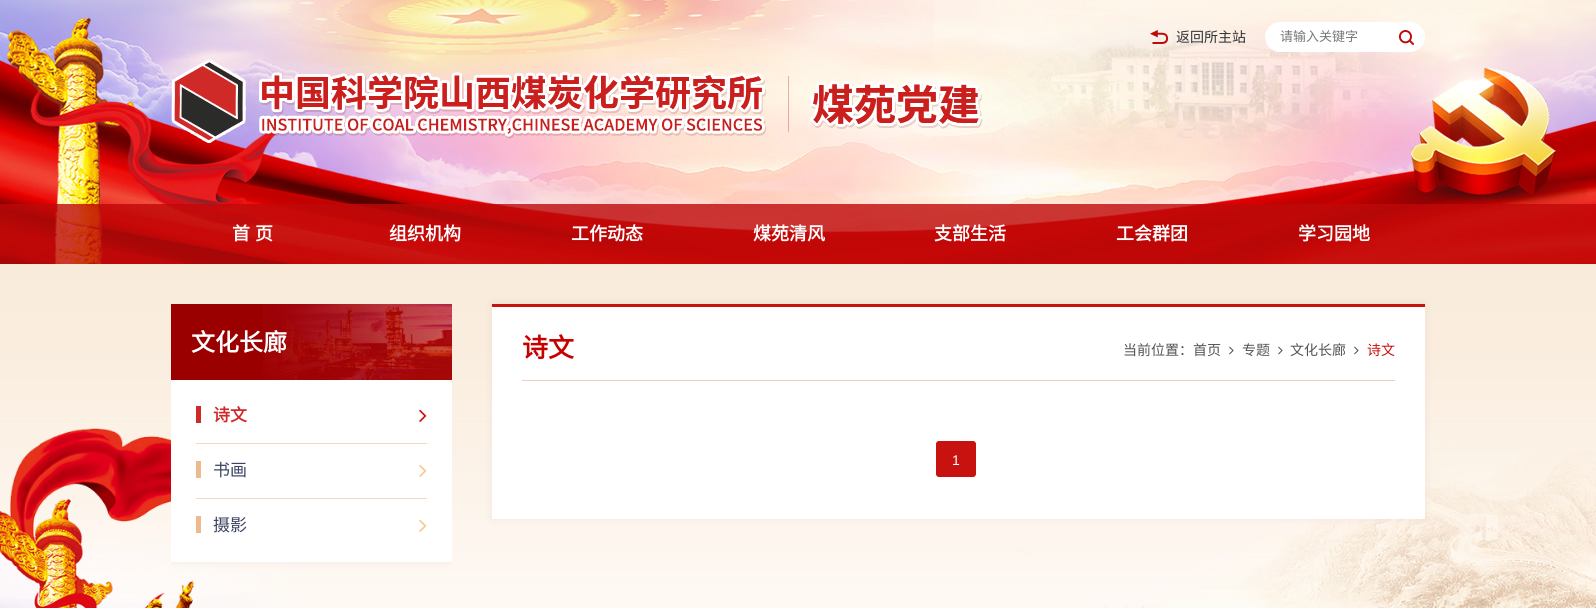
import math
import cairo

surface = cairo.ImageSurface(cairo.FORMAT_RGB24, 1596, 608)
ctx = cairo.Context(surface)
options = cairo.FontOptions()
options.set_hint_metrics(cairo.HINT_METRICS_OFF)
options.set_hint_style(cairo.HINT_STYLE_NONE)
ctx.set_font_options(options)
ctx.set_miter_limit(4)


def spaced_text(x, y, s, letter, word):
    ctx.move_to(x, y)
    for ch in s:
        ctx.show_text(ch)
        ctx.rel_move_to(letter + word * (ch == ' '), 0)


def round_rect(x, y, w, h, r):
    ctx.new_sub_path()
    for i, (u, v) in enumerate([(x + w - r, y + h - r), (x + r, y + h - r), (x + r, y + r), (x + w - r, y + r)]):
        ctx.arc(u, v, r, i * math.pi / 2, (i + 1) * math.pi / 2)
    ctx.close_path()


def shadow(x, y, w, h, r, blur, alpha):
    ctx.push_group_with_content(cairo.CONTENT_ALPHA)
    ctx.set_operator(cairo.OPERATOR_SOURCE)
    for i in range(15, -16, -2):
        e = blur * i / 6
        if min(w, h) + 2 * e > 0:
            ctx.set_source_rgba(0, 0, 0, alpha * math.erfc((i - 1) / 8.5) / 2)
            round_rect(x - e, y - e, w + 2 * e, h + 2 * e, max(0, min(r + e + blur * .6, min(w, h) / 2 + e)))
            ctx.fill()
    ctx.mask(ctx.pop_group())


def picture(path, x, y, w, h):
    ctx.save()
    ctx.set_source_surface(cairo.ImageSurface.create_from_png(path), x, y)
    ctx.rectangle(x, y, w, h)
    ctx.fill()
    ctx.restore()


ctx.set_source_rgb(1, 1, 1)
ctx.paint()
picture("img1.png", 0, 264, 1596, 344)
picture("img2.png", 0, 0, 1596, 264)
picture("img3.png", 1150, 30, 18, 14)
ctx.select_font_face("Noto Sans CJK SC")
ctx.set_font_size(14)
ctx.set_source_rgb(0.2, 0.2, 0.2)
ctx.move_to(1176, 42)
ctx.show_text("返回所主站")
ctx.set_source_rgb(1, 1, 1)
round_rect(1265, 22, 160, 30, 15)
ctx.fill()
ctx.set_font_size(13)
ctx.set_source_rgb(0.467, 0.467, 0.467)
ctx.move_to(1280, 41)
ctx.show_text("请输入关键字")
picture("img4.png", 1399, 30, 15, 15)
picture("img5.png", 171, 59, 812, 85)
ctx.set_source_rgba(0.745, 0.039, 0.039, 0.8)
ctx.rectangle(0, 204, 1596, 60)
ctx.fill()
ctx.select_font_face("Noto Sans CJK SC", cairo.FONT_SLANT_NORMAL, cairo.FONT_WEIGHT_BOLD)
ctx.set_font_size(18)
ctx.set_source_rgb(1, 1, 1)
spaced_text(232, 240, "首 页", 0, 1)
ctx.move_to(389, 240)
ctx.show_text("组织机构")
ctx.move_to(571, 240)
ctx.show_text("工作动态")
ctx.move_to(753, 240)
ctx.show_text("煤苑清风")
ctx.move_to(934, 240)
ctx.show_text("支部生活")
ctx.move_to(1116, 240)
ctx.show_text("工会群团")
ctx.move_to(1298, 240)
ctx.show_text("学习园地")
picture("img6.png", 0, 428, 1596, 180)
ctx.save()
ctx.rectangle(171, 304, 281, 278)
ctx.clip()
ctx.set_source_rgb(0.502, 0.322, 0.333)
shadow(171, 380, 281, 182, 0, 4, 0.1)
ctx.restore()
ctx.set_source_rgb(0.608, 0, 0)
ctx.rectangle(171, 304, 92, 76)
ctx.fill()
picture("img7.png", 263, 304, 189, 76)
ctx.set_font_size(24)
ctx.set_source_rgb(1, 1, 1)
ctx.move_to(191, 351)
ctx.show_text("文化长廊")
ctx.rectangle(171, 380, 281, 182)
ctx.fill()
ctx.set_source_rgb(0.945, 0.851, 0.769)
ctx.rectangle(196, 443, 231, 1)
ctx.fill()
ctx.set_source_rgb(0.812, 0.161, 0.157)
ctx.rectangle(196, 406, 5, 17)
ctx.fill()
ctx.set_font_size(17)
ctx.move_to(213, 421)
ctx.show_text("诗文")
picture("img8.png", 419, 409, 8, 13)
ctx.set_source_rgb(0.945, 0.851, 0.769)
ctx.rectangle(196, 498, 231, 1)
ctx.fill()
ctx.set_source_rgb(0.922, 0.729, 0.553)
ctx.rectangle(196, 461, 5, 17)
ctx.fill()
ctx.select_font_face("Noto Sans CJK SC")
ctx.set_source_rgb(0.231, 0.267, 0.38)
ctx.move_to(213, 476)
ctx.show_text("书画")
picture("img9.png", 419, 464, 8, 13)
ctx.set_source_rgb(0.922, 0.729, 0.553)
ctx.rectangle(196, 516, 5, 17)
ctx.fill()
ctx.set_source_rgb(0.231, 0.267, 0.38)
ctx.move_to(213, 531)
ctx.show_text("摄影")
picture("img9.png", 419, 519, 8, 13)
ctx.set_source_rgb(0.502, 0.322, 0.333)
shadow(492, 304, 933, 215, 0, 4, 0.1)
ctx.set_source_rgb(1, 1, 1)
ctx.rectangle(492, 307, 933, 212)
ctx.fill()
ctx.set_source_rgb(0.784, 0.071, 0.063)
ctx.rectangle(492, 304, 933, 3)
ctx.fill()
ctx.set_source_rgb(0.945, 0.792, 0.769)
ctx.rectangle(522, 380, 873, 1)
ctx.fill()
ctx.select_font_face("Noto Sans CJK SC", cairo.FONT_SLANT_NORMAL, cairo.FONT_WEIGHT_BOLD)
ctx.set_font_size(26)
ctx.set_source_rgb(0.784, 0.004, 0)
ctx.move_to(522, 357)
ctx.show_text("诗文")
ctx.select_font_face("Noto Sans CJK SC")
ctx.set_font_size(14)
ctx.set_source_rgb(0.329, 0.329, 0.329)
ctx.move_to(1123, 355)
ctx.show_text("当前位置：首页")
picture("img10.png", 1229, 346, 5, 9)
ctx.move_to(1242, 355)
ctx.show_text("专题")
picture("img10.png", 1278, 346, 5, 9)
ctx.move_to(1290, 355)
ctx.show_text("文化长廊")
picture("img10.png", 1354, 346, 5, 9)
ctx.set_source_rgb(0.784, 0.063, 0.055)
ctx.move_to(1367, 355)
ctx.show_text("诗文")
ctx.set_source_rgb(0.784, 0.071, 0.063)
round_rect(936.5, 441.5, 39, 35, 2.5)
ctx.fill_preserve()
ctx.set_line_width(1)
ctx.stroke()
ctx.select_font_face("Liberation Sans")
ctx.set_source_rgb(1, 1, 1)
ctx.move_to(952, 465)
ctx.show_text("1")
surface.write_to_png("page.png")
